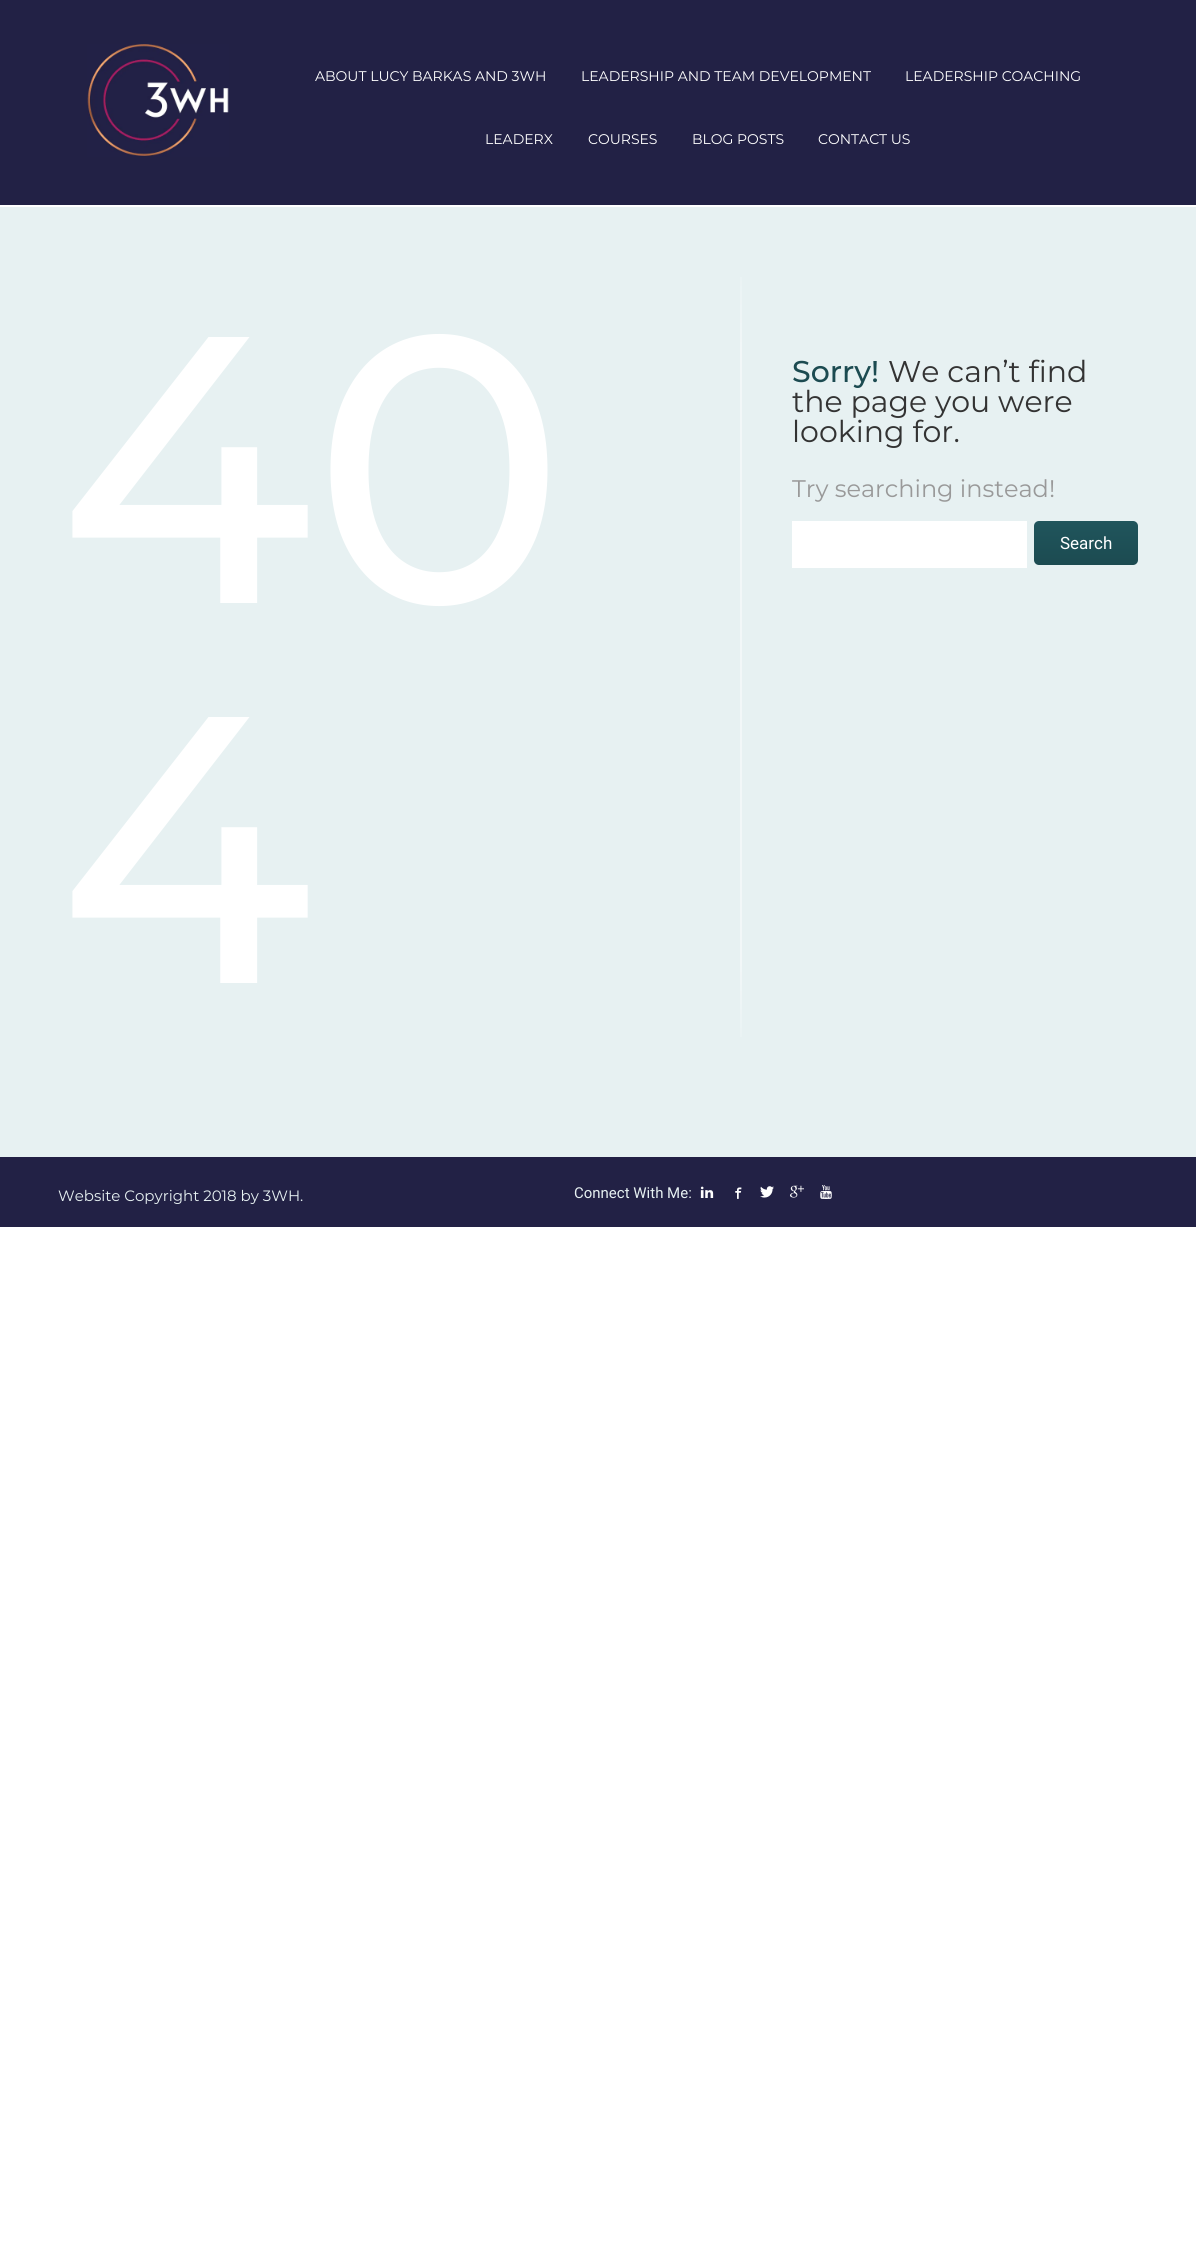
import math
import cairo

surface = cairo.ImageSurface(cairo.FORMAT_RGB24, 1196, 2254)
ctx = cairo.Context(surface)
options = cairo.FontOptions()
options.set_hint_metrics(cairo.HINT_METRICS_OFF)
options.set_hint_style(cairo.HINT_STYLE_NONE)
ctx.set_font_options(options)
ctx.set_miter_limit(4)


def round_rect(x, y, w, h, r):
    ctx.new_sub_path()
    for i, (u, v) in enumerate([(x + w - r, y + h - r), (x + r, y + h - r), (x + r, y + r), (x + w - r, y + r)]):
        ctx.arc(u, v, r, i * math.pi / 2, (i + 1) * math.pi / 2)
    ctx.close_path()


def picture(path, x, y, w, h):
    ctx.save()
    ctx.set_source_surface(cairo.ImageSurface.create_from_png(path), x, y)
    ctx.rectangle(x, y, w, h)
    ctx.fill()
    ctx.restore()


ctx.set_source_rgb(1, 1, 1)
ctx.paint()
ctx.set_source_rgb(0.133, 0.129, 0.271)
ctx.rectangle(0, 0, 1196, 205)
ctx.fill()
picture("img1.png", 87, 44, 142, 113)
ctx.select_font_face("Montserrat")
ctx.set_font_size(14)
ctx.set_source_rgb(1, 1, 1)
ctx.move_to(315, 81)
ctx.show_text("ABOUT LUCY BARKAS AND 3WH")
ctx.move_to(581, 81)
ctx.show_text("LEADERSHIP AND TEAM DEVELOPMENT")
ctx.move_to(905, 81)
ctx.show_text("LEADERSHIP COACHING")
ctx.move_to(485, 144)
ctx.show_text("LEADERX")
ctx.move_to(588, 144)
ctx.show_text("COURSES")
ctx.move_to(692, 144)
ctx.show_text("BLOG POSTS")
ctx.move_to(818, 144)
ctx.show_text("CONTACT US")
ctx.set_source_rgb(0.906, 0.945, 0.949)
ctx.rectangle(0, 207, 1196, 950)
ctx.fill()
ctx.select_font_face("Montserrat Medium")
ctx.set_font_size(380)
ctx.set_source_rgb(1, 1, 1)
ctx.move_to(58, 603)
ctx.show_text("40")
ctx.move_to(58, 983)
ctx.show_text("4")
gradient = cairo.LinearGradient(741, 277, 741, 1037)
gradient.add_color_stop_rgba(0, 0.918, 0.953, 0.957, 1)
gradient.add_color_stop_rgba(0.1, 0.949, 0.969, 0.973, 1)
gradient.add_color_stop_rgba(0.9, 0.949, 0.969, 0.973, 1)
gradient.add_color_stop_rgba(1, 0.918, 0.953, 0.957, 1)
ctx.set_source(gradient)
ctx.rectangle(740, 277, 2, 760)
ctx.fill()
ctx.set_font_size(30)
ctx.set_source_rgb(0.11, 0.294, 0.318)
ctx.move_to(792, 382)
ctx.show_text("Sorry!")
ctx.select_font_face("Montserrat")
ctx.set_source_rgb(0.2, 0.2, 0.2)
ctx.move_to(888, 382)
ctx.show_text("We can’t find")
ctx.move_to(792, 412)
ctx.show_text("the page you were")
ctx.move_to(792, 442)
ctx.show_text("looking for.")
ctx.set_font_size(24)
ctx.set_source_rgb(0.6, 0.6, 0.6)
ctx.move_to(792, 497)
ctx.show_text("Try searching instead!")
ctx.set_source_rgb(1, 1, 1)
ctx.rectangle(792, 521, 235, 47)
ctx.fill()
gradient = cairo.LinearGradient(1086, 521, 1086, 565)
gradient.add_color_stop_rgba(0, 0.125, 0.333, 0.361, 1)
gradient.add_color_stop_rgba(1, 0.11, 0.294, 0.318, 1)
ctx.set_source(gradient)
round_rect(1034, 521, 104, 44, 5)
ctx.fill()
ctx.select_font_face("Roboto")
ctx.set_font_size(17)
ctx.set_source_rgb(1, 1, 1)
ctx.move_to(1060, 549)
ctx.show_text("Search")
ctx.set_source_rgb(0.133, 0.129, 0.271)
ctx.rectangle(0, 1157, 1196, 70)
ctx.fill()
ctx.select_font_face("Montserrat")
ctx.set_font_size(15)
ctx.set_source_rgb(0.906, 0.945, 0.949)
ctx.move_to(58, 1201)
ctx.show_text("Website Copyright 2018 by 3WH.")
ctx.select_font_face("Roboto")
ctx.move_to(574, 1198)
ctx.show_text("Connect With Me:")
picture("img2.png", 700, 1186, 14, 12)
ctx.select_font_face("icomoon")
ctx.set_font_size(14)
ctx.set_source_rgb(1, 1, 1)
ctx.move_to(730, 1198)
ctx.show_text("=")
picture("img3.png", 760, 1186, 14, 12)
ctx.move_to(790, 1198)
ctx.show_text("-")
picture("img4.png", 820, 1185, 12, 14)
surface.write_to_png("page.png")
